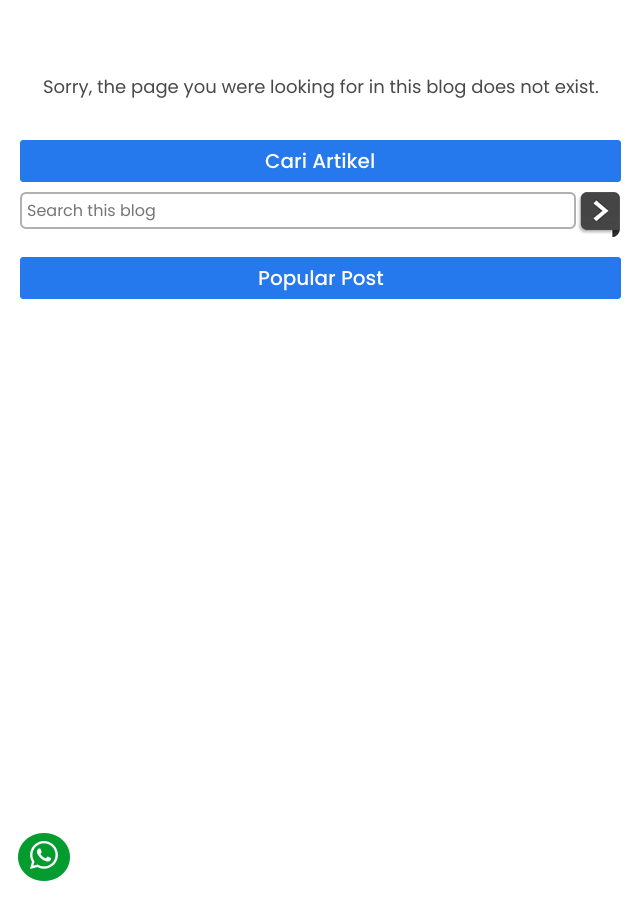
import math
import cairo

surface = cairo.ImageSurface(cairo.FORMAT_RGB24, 641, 899)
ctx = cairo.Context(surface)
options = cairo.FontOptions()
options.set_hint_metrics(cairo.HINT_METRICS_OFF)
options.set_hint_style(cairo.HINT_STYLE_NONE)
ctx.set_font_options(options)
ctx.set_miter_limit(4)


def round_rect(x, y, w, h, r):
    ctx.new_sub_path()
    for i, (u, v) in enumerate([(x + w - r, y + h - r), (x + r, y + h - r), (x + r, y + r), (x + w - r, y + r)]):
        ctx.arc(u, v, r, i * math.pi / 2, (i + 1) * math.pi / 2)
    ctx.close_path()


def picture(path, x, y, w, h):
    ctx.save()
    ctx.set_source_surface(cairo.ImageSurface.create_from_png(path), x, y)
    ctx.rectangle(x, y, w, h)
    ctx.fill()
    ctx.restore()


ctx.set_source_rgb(1, 1, 1)
ctx.paint()
ctx.select_font_face("Poppins")
ctx.set_font_size(18)
ctx.set_source_rgb(0.286, 0.286, 0.286)
ctx.move_to(43, 93)
ctx.show_text("Sorry, the page you were looking for in this blog does not exist.")
ctx.set_source_rgb(0.149, 0.475, 0.925)
round_rect(20, 140, 601, 42, 3)
ctx.fill()
ctx.select_font_face("Poppins Medium")
ctx.set_font_size(20)
ctx.set_source_rgb(1, 1, 1)
ctx.move_to(265, 168)
ctx.show_text("Cari Artikel")
round_rect(21, 193, 554, 35, 5)
ctx.set_source_rgb(0.694, 0.694, 0.694)
ctx.stroke()
ctx.select_font_face("Poppins")
ctx.set_font_size(16)
ctx.set_source_rgb(0.459, 0.459, 0.459)
ctx.move_to(27, 216)
ctx.show_text("Search this blog")
picture("img1.png", 577, 192, 43, 45)
ctx.set_source_rgb(0.149, 0.475, 0.925)
round_rect(20, 257, 601, 42, 3)
ctx.fill()
ctx.select_font_face("Poppins Medium")
ctx.set_font_size(20)
ctx.set_source_rgb(1, 1, 1)
ctx.move_to(258, 285)
ctx.show_text("Popular Post")
ctx.set_source_rgb(0.016, 0.612, 0.184)
ctx.new_path()
ctx.move_to(44, 833)
ctx.curve_to(58.5, 833, 70, 843.5, 70, 857)
ctx.curve_to(70, 870.5, 58.5, 881, 44, 881)
ctx.curve_to(29.5, 881, 18, 870.5, 18, 857)
ctx.curve_to(18, 843.5, 29.5, 833, 44, 833)
ctx.close_path()
ctx.fill()
picture("img2.png", 30, 841, 28, 28)
surface.write_to_png("page.png")
